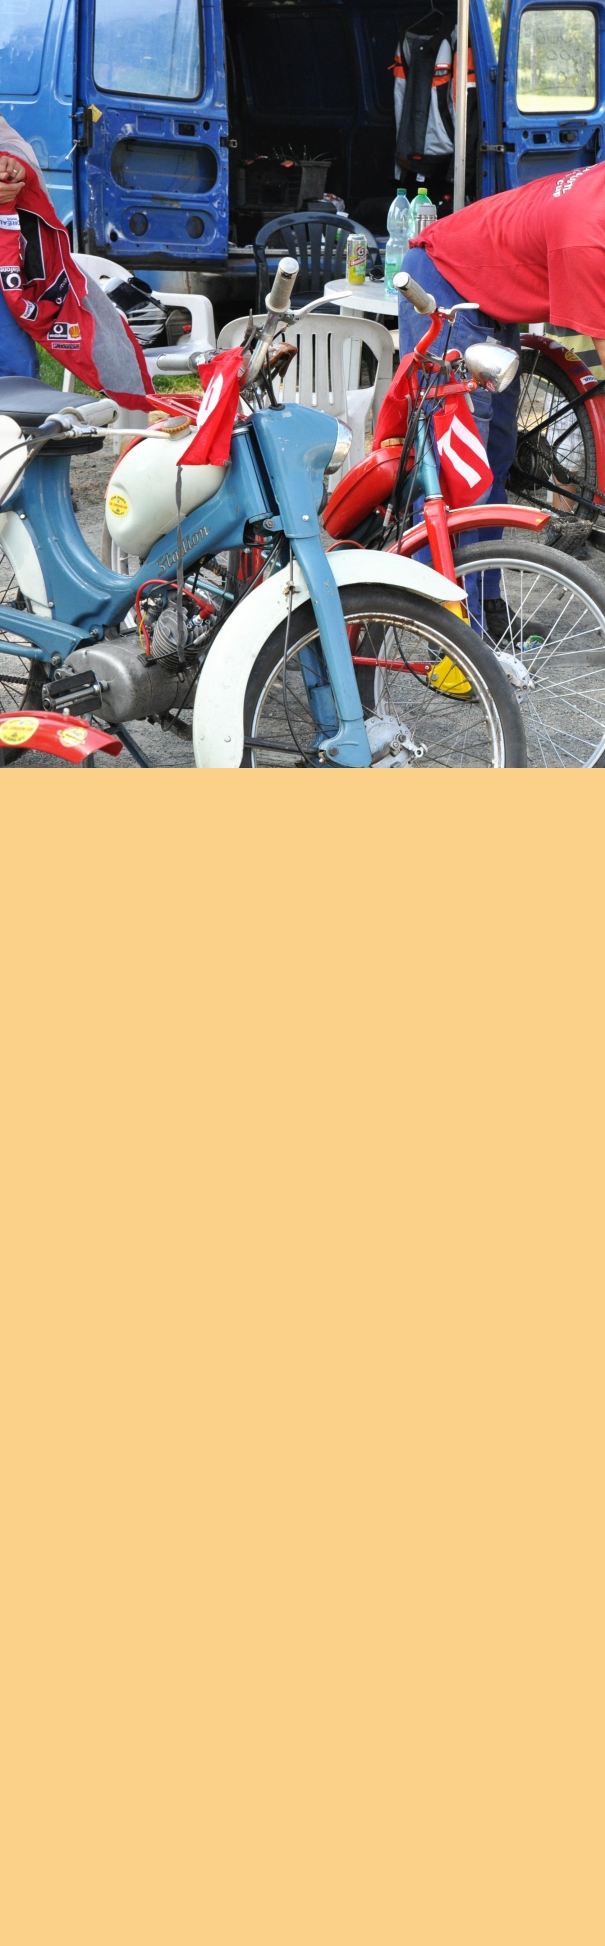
import math
import cairo

surface = cairo.ImageSurface(cairo.FORMAT_RGB24, 605, 1946)
ctx = cairo.Context(surface)
options = cairo.FontOptions()
options.set_hint_metrics(cairo.HINT_METRICS_OFF)
options.set_hint_style(cairo.HINT_STYLE_NONE)
ctx.set_font_options(options)
ctx.set_miter_limit(4)


def picture(path, x, y, w, h):
    ctx.save()
    ctx.set_source_surface(cairo.ImageSurface.create_from_png(path), x, y)
    ctx.rectangle(x, y, w, h)
    ctx.fill()
    ctx.restore()


ctx.set_source_rgb(0.984, 0.82, 0.537)
ctx.paint()
picture("img1.png", 0, 0, 605, 768)
surface.write_to_png("page.png")
